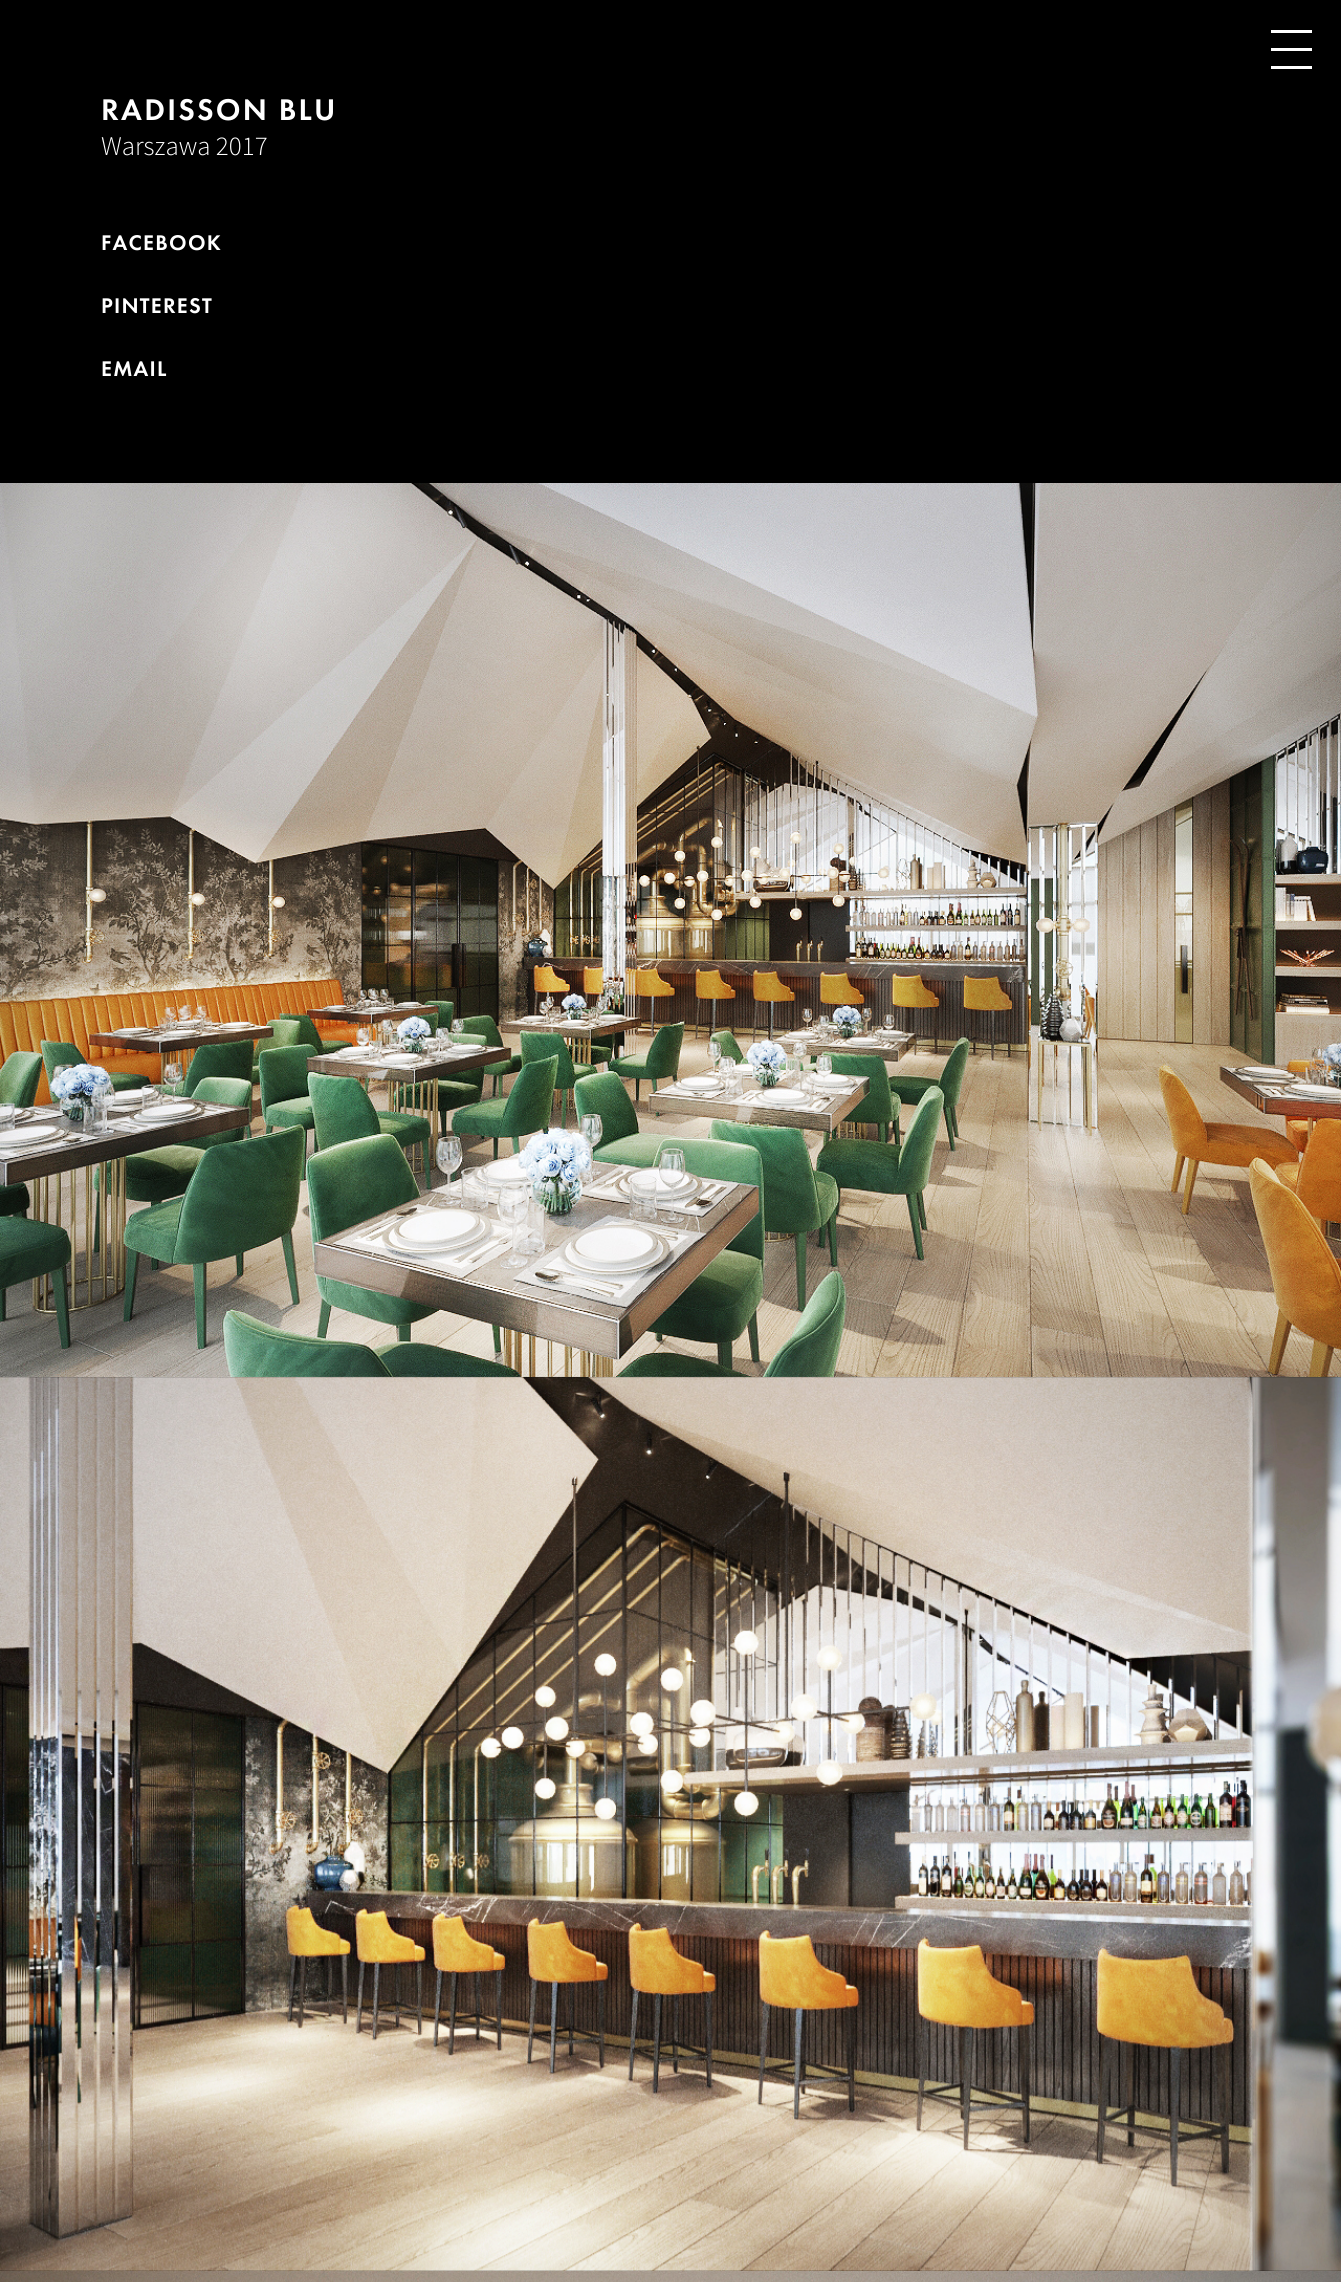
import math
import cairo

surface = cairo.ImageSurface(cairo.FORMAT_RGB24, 1341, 2282)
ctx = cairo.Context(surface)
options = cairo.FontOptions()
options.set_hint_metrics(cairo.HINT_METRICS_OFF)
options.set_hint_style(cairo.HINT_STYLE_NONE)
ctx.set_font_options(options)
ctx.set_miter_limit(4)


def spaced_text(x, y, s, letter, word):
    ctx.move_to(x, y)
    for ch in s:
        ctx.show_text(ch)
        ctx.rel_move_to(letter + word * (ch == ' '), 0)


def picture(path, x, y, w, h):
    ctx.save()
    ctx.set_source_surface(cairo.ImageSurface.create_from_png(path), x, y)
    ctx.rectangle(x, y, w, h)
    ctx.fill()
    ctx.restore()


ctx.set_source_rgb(0, 0, 0)
ctx.paint()
ctx.set_source_rgb(1, 1, 1)
ctx.set_fill_rule(cairo.FILL_RULE_EVEN_ODD)
ctx.new_path()
ctx.move_to(1312, 33)
ctx.line_to(1271, 33)
ctx.line_to(1271, 30)
ctx.line_to(1312, 30)
ctx.close_path()
ctx.move_to(1312, 69)
ctx.line_to(1271, 69)
ctx.line_to(1271, 66)
ctx.line_to(1312, 66)
ctx.close_path()
ctx.move_to(1312, 51)
ctx.line_to(1271, 51)
ctx.line_to(1271, 48)
ctx.line_to(1312, 48)
ctx.close_path()
ctx.fill()
ctx.select_font_face("Futura PT Medium")
ctx.set_font_size(31)
spaced_text(101, 120, "RADISSON BLU", 2.25, 0)
ctx.select_font_face("Source Sans Pro Light")
ctx.set_font_size(27)
ctx.move_to(101, 155)
ctx.show_text("Warszawa 2017")
ctx.select_font_face("Futura PT Medium")
ctx.set_font_size(22)
spaced_text(101, 250, "FACEBOOK", 1.25, 0)
spaced_text(101, 313, "PINTEREST", 1.25, 0)
spaced_text(101, 376, "EMAIL", 1.25, 0)
picture("img1.png", 0, 483, 1341, 894)
picture("img2.png", 0, 1376, 1341, 895)
picture("img3.png", 0, 2271, 1341, 11)
surface.write_to_png("page.png")
